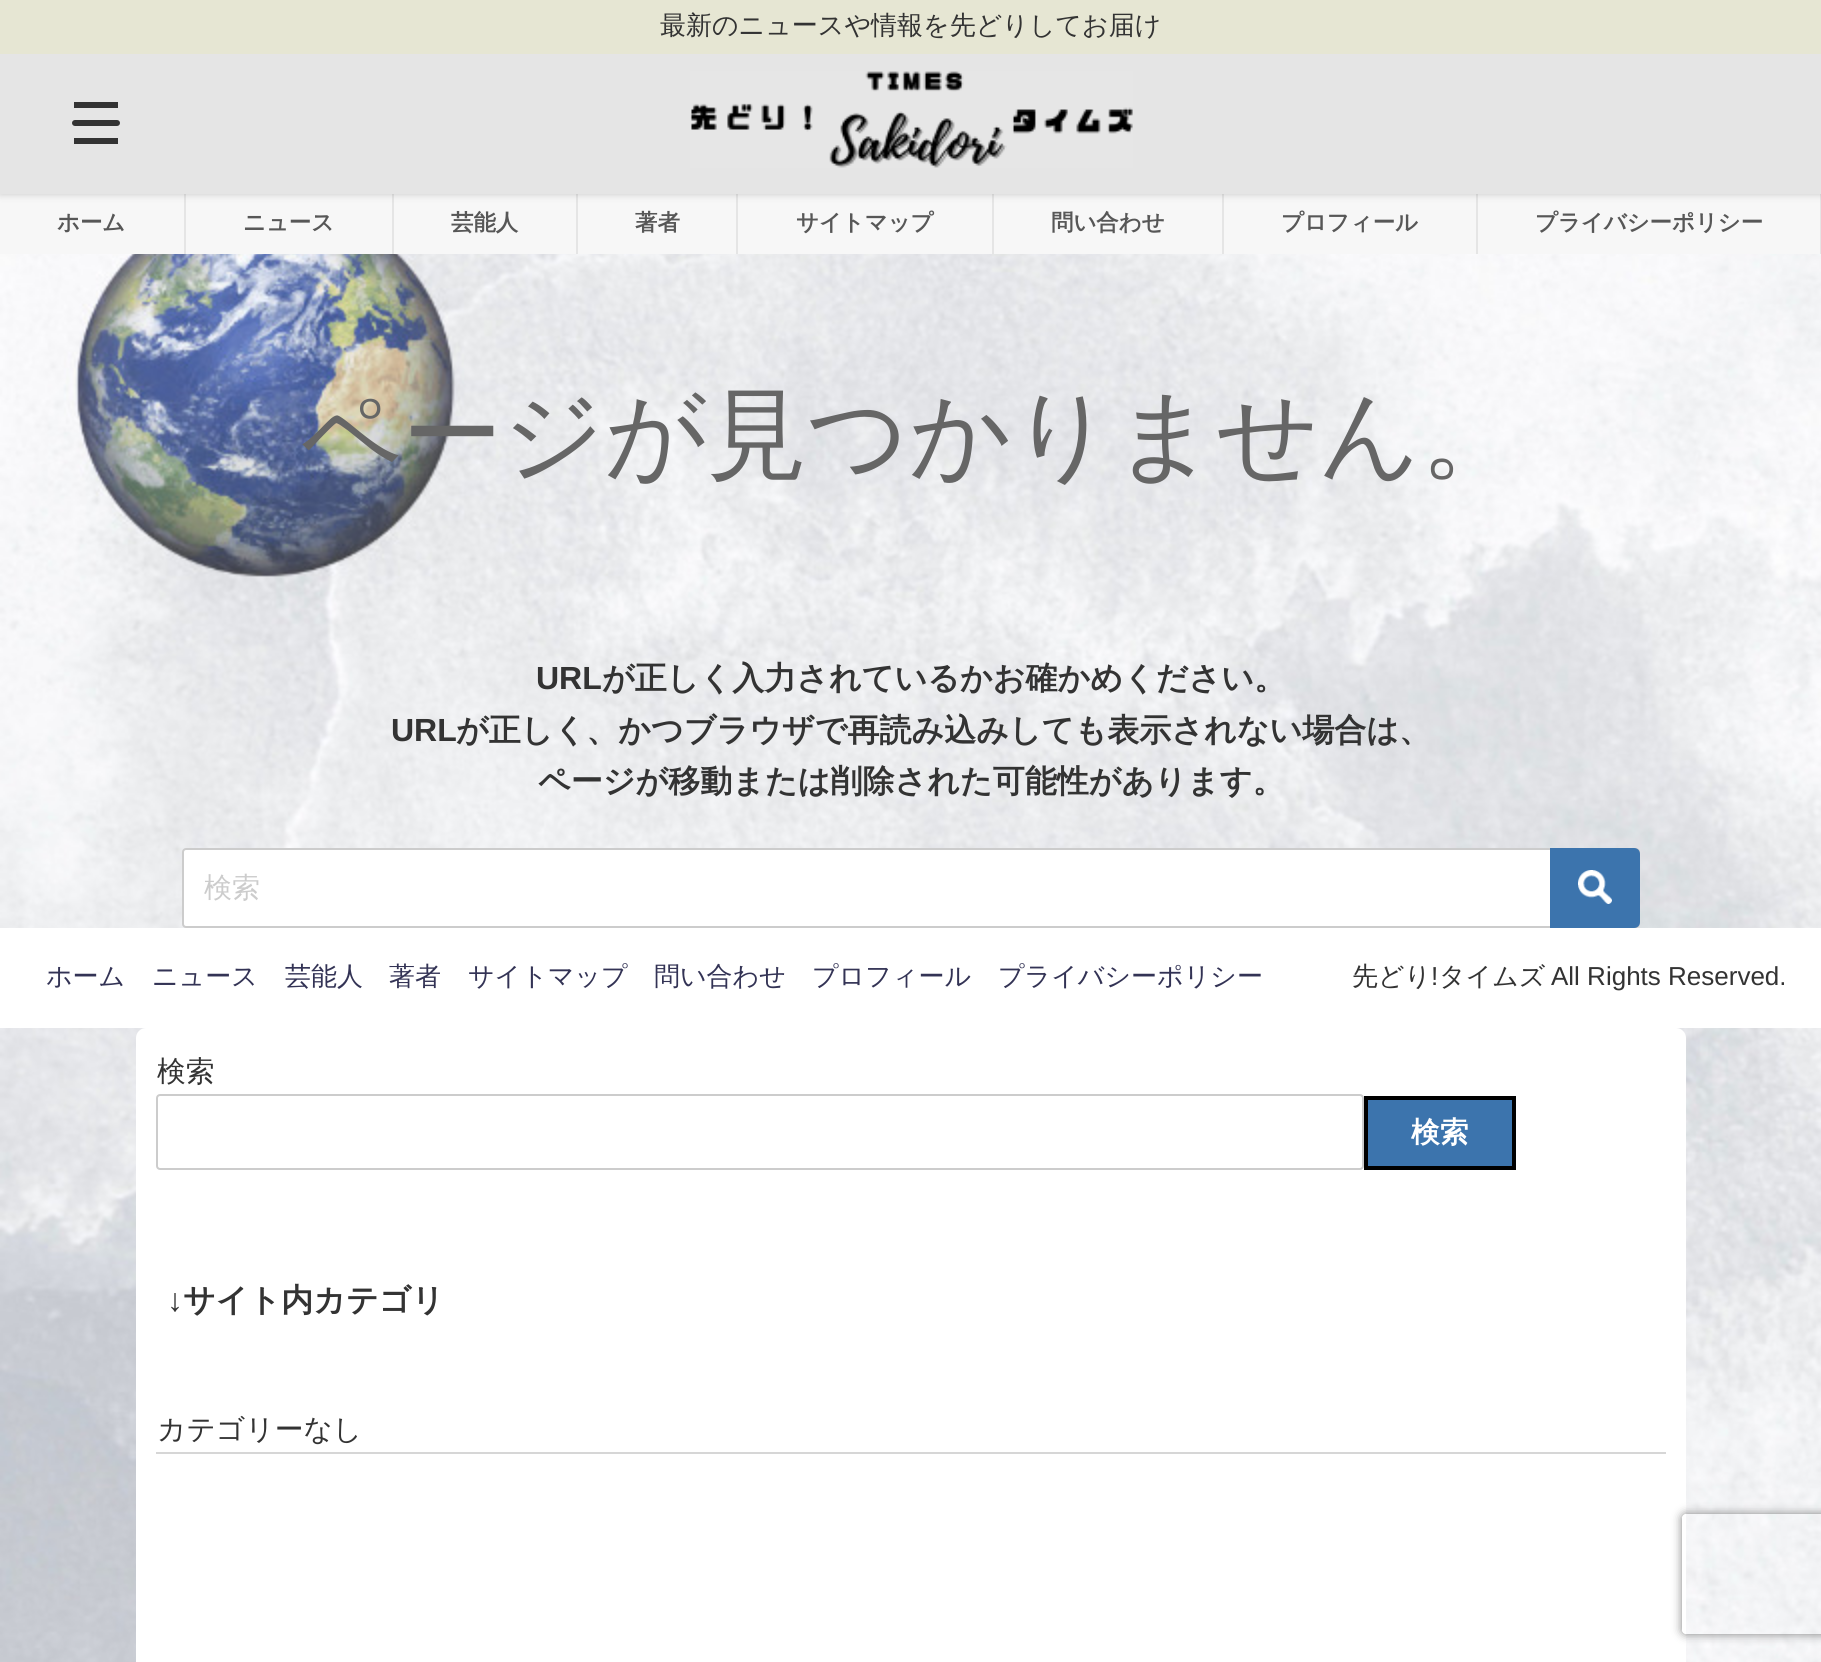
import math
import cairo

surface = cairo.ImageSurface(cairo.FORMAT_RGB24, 1821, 1662)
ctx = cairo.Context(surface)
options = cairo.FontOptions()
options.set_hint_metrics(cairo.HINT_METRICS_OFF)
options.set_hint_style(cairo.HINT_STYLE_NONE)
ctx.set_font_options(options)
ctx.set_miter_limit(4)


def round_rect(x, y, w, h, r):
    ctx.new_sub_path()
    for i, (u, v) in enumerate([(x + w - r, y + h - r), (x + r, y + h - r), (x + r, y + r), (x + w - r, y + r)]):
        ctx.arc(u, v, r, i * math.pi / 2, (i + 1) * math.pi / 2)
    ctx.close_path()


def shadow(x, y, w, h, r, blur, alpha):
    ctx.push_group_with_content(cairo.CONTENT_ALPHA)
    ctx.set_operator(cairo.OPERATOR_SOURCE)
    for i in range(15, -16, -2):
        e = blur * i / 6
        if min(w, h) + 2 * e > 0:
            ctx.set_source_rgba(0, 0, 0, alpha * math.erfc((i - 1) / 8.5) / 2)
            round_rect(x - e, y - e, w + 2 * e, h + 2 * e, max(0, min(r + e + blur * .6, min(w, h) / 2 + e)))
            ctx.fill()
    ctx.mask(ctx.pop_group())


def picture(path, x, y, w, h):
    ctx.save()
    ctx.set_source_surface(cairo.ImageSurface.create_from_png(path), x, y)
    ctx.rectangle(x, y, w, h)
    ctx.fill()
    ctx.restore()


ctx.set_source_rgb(1, 1, 1)
ctx.paint()
picture("img1.png", 0, 254, 1821, 1408)
ctx.set_source_rgb(0.898, 0.898, 0.898)
ctx.rectangle(184, 194, 1637, 60)
ctx.fill()
ctx.set_source_rgb(0.965, 0.965, 0.965)
ctx.rectangle(0, 194, 184, 60)
ctx.fill()
ctx.rectangle(186, 194, 206, 60)
ctx.fill()
ctx.rectangle(394, 194, 182, 60)
ctx.fill()
ctx.rectangle(578, 194, 158, 60)
ctx.fill()
ctx.rectangle(738, 194, 254, 60)
ctx.fill()
ctx.rectangle(994, 194, 228, 60)
ctx.fill()
ctx.rectangle(1224, 194, 252, 60)
ctx.fill()
ctx.rectangle(1478, 194, 342, 60)
ctx.fill()
ctx.set_source_rgb(0, 0, 0)
shadow(0, 0, 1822, 194, 0, 4, 0.2)
ctx.set_source_rgb(0.898, 0.898, 0.898)
ctx.rectangle(0, 54, 1821, 140)
ctx.fill()
ctx.set_source_rgb(0.902, 0.902, 0.827)
ctx.rectangle(0, 0, 1821, 54)
ctx.fill()
ctx.select_font_face("WenQuanYi Zen Hei Medium")
ctx.set_font_size(26)
ctx.set_source_rgb(0.2, 0.2, 0.2)
ctx.move_to(660, 34)
ctx.show_text("最新のニュースや情報を先どりしてお届け")
ctx.rectangle(74, 102, 44, 6)
ctx.fill()
round_rect(72, 120, 48, 6, 3)
ctx.fill()
ctx.rectangle(74, 138, 44, 6)
ctx.fill()
picture("img2.png", 690, 71, 443, 97)
ctx.select_font_face("WenQuanYi Zen Hei", cairo.FONT_SLANT_NORMAL, cairo.FONT_WEIGHT_BOLD)
ctx.set_font_size(22.4)
ctx.set_source_rgb(0.341, 0.341, 0.341)
ctx.move_to(57, 230)
ctx.show_text("ホーム")
ctx.move_to(243, 230)
ctx.show_text("ニュース")
ctx.move_to(451, 230)
ctx.show_text("芸能人")
ctx.move_to(635, 230)
ctx.show_text("著者")
ctx.move_to(796, 230)
ctx.show_text("サイトマップ")
ctx.move_to(1051, 230)
ctx.show_text("問い合わせ")
ctx.move_to(1281, 230)
ctx.show_text("プロフィール")
ctx.move_to(1535, 230)
ctx.show_text("プライバシーポリシー")
ctx.select_font_face("WenQuanYi Zen Hei Medium")
ctx.set_font_size(100)
ctx.set_source_rgb(0.4, 0.4, 0.4)
ctx.move_to(300, 469)
ctx.show_text("ページが見つかりません。")
ctx.select_font_face("Liberation Sans", cairo.FONT_SLANT_NORMAL, cairo.FONT_WEIGHT_BOLD)
ctx.set_font_size(32)
ctx.set_source_rgb(0.2, 0.2, 0.2)
ctx.move_to(536, 689)
ctx.show_text("URL")
ctx.select_font_face("WenQuanYi Zen Hei", cairo.FONT_SLANT_NORMAL, cairo.FONT_WEIGHT_BOLD)
ctx.move_to(602, 689)
ctx.show_text("が正しく入力されているかお確かめください。")
ctx.select_font_face("Liberation Sans", cairo.FONT_SLANT_NORMAL, cairo.FONT_WEIGHT_BOLD)
ctx.move_to(391, 741)
ctx.show_text("URL")
ctx.select_font_face("WenQuanYi Zen Hei", cairo.FONT_SLANT_NORMAL, cairo.FONT_WEIGHT_BOLD)
ctx.move_to(456, 741)
ctx.show_text("が正しく、かつブラウザで再読み込みしても表示されない場合は、")
ctx.move_to(538, 792)
ctx.show_text("ページが移動または削除された可能性があります。")
ctx.set_source_rgb(1, 1, 1)
round_rect(183, 849, 1456, 78, 3)
ctx.fill_preserve()
ctx.set_source_rgb(0.8, 0.8, 0.8)
ctx.stroke()
ctx.select_font_face("WenQuanYi Zen Hei Medium")
ctx.set_font_size(28)
ctx.move_to(204, 897)
ctx.show_text("検索")
ctx.set_source_rgb(0.235, 0.455, 0.678)
ctx.new_path()
ctx.move_to(1550, 848)
ctx.line_to(1634, 848)
ctx.curve_to(1637.5, 848, 1640, 850.5, 1640, 854)
ctx.line_to(1640, 922)
ctx.curve_to(1640, 925.5, 1637.5, 928, 1634, 928)
ctx.line_to(1550, 928)
ctx.close_path()
ctx.fill()
picture("img3.png", 1578, 870, 34, 34)
ctx.set_source_rgb(1, 1, 1)
ctx.rectangle(0, 928, 1821, 100)
ctx.fill()
ctx.set_font_size(26)
ctx.set_source_rgb(0.2, 0.2, 0.333)
ctx.move_to(46, 985)
ctx.show_text("ホーム")
ctx.move_to(152, 985)
ctx.show_text("ニュース")
ctx.move_to(285, 985)
ctx.show_text("芸能人")
ctx.move_to(389, 985)
ctx.show_text("著者")
ctx.move_to(468, 985)
ctx.show_text("サイトマップ")
ctx.move_to(654, 985)
ctx.show_text("問い合わせ")
ctx.move_to(812, 985)
ctx.show_text("プロフィール")
ctx.move_to(998, 985)
ctx.show_text("プライバシーポリシー")
ctx.set_source_rgb(0.2, 0.2, 0.2)
ctx.move_to(1352, 985)
ctx.show_text("先どり")
ctx.select_font_face("Liberation Sans")
ctx.move_to(1431, 985)
ctx.show_text("!")
ctx.select_font_face("WenQuanYi Zen Hei Medium")
ctx.move_to(1439, 985)
ctx.show_text("タイムズ")
ctx.select_font_face("Liberation Sans")
ctx.move_to(1551, 985)
ctx.show_text("All Rights Reserved.")
ctx.set_source_rgb(1, 1, 1)
round_rect(136, 1028, 1550, 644, 10)
ctx.fill()
ctx.select_font_face("WenQuanYi Zen Hei Medium")
ctx.set_font_size(28.75)
ctx.set_source_rgb(0.2, 0.2, 0.2)
ctx.move_to(157, 1081)
ctx.show_text("検索")
round_rect(157, 1095, 1206, 74, 3)
ctx.set_source_rgb(0.8, 0.8, 0.8)
ctx.stroke()
ctx.set_source_rgb(0.235, 0.455, 0.678)
ctx.rectangle(1366, 1098, 148, 70)
ctx.fill_preserve()
ctx.set_source_rgb(0, 0, 0)
ctx.set_line_width(4)
ctx.stroke()
ctx.select_font_face("WenQuanYi Zen Hei", cairo.FONT_SLANT_NORMAL, cairo.FONT_WEIGHT_BOLD)
ctx.set_source_rgb(1, 1, 1)
ctx.move_to(1411, 1142)
ctx.show_text("検索")
ctx.select_font_face("Liberation Sans", cairo.FONT_SLANT_NORMAL, cairo.FONT_WEIGHT_BOLD)
ctx.set_font_size(32)
ctx.set_source_rgb(0.2, 0.2, 0.2)
ctx.move_to(167, 1311)
ctx.show_text("↓")
ctx.select_font_face("WenQuanYi Zen Hei", cairo.FONT_SLANT_NORMAL, cairo.FONT_WEIGHT_BOLD)
ctx.move_to(183, 1311)
ctx.show_text("サイト内カテゴリ")
ctx.set_source_rgb(0.839, 0.839, 0.839)
ctx.rectangle(156, 1452, 1510, 2)
ctx.fill()
ctx.select_font_face("WenQuanYi Zen Hei Medium")
ctx.set_font_size(28.75)
ctx.set_source_rgb(0.2, 0.2, 0.2)
ctx.move_to(157, 1439)
ctx.show_text("カテゴリーなし")
ctx.save()
ctx.set_fill_rule(cairo.FILL_RULE_EVEN_ODD)
ctx.new_path()
ctx.move_to(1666, 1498)
ctx.line_to(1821, 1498)
ctx.line_to(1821, 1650)
ctx.line_to(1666, 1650)
ctx.close_path()
ctx.move_to(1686, 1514)
ctx.line_to(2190, 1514)
ctx.curve_to(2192, 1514, 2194, 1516, 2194, 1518)
ctx.line_to(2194, 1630)
ctx.curve_to(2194, 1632, 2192, 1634, 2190, 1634)
ctx.line_to(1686, 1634)
ctx.curve_to(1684, 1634, 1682, 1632, 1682, 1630)
ctx.line_to(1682, 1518)
ctx.curve_to(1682, 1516, 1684, 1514, 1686, 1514)
ctx.close_path()
ctx.clip()
ctx.set_source_rgb(0.502, 0.502, 0.502)
shadow(1682, 1514, 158, 120, 4, 5, 1)
ctx.restore()
surface.write_to_png("page.png")
